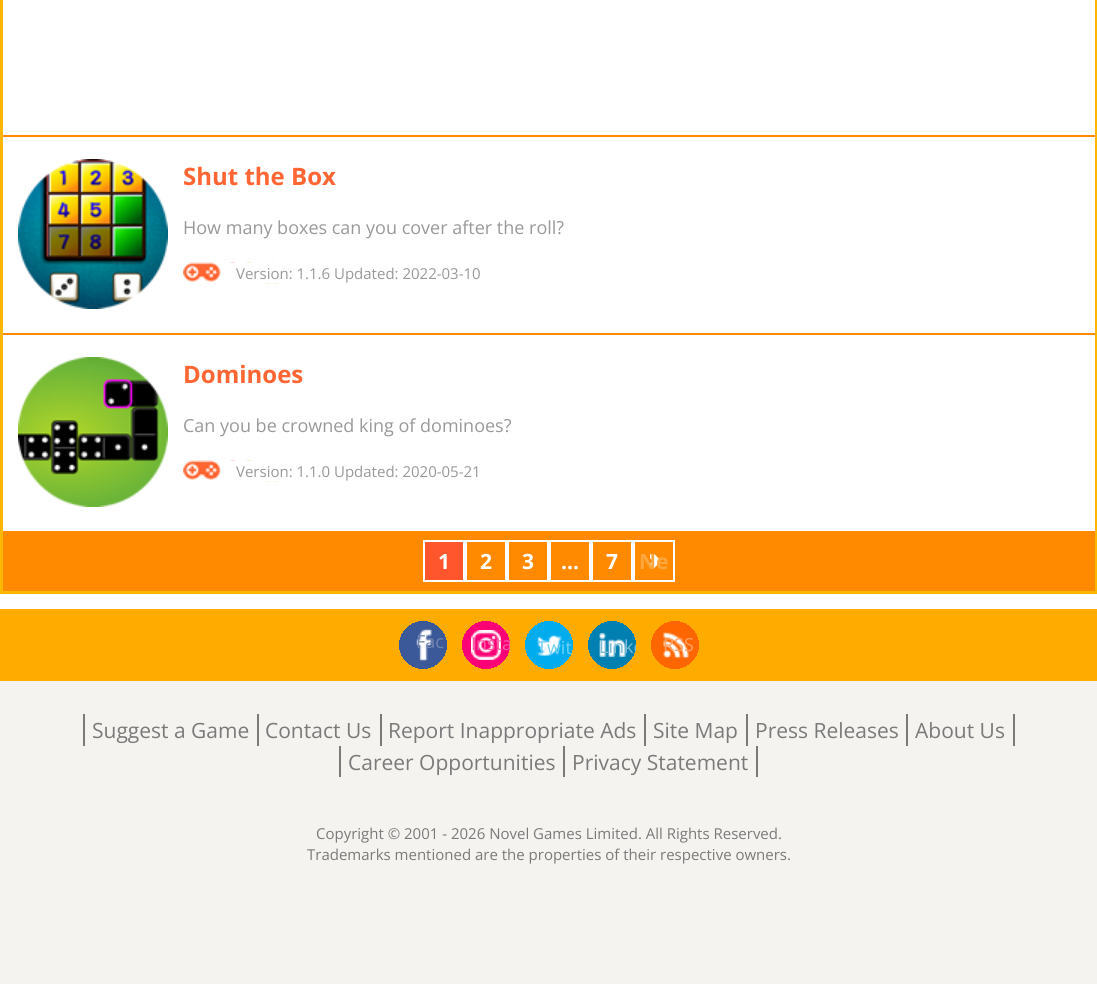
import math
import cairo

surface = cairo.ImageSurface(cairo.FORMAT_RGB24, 1097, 984)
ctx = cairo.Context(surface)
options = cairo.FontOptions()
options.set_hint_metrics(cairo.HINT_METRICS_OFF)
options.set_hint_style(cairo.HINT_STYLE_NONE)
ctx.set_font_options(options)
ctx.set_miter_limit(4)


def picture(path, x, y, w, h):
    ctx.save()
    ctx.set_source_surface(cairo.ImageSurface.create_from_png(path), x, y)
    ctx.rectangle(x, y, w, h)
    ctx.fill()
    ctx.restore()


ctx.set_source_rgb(1, 1, 1)
ctx.paint()
ctx.set_source_rgb(1, 0.541, 0)
ctx.rectangle(3, 531, 1092, 60)
ctx.fill()
ctx.rectangle(1.5, -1.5, 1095, 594)
ctx.set_source_rgb(1, 0.714, 0)
ctx.set_line_width(3)
ctx.stroke()
ctx.set_source_rgb(1, 0.541, 0)
ctx.rectangle(3, 135, 1092, 2)
ctx.fill()
picture("img1.png", 18, 159, 150, 150)
ctx.select_font_face("Open Sans", cairo.FONT_SLANT_NORMAL, cairo.FONT_WEIGHT_BOLD)
ctx.set_font_size(24)
ctx.set_source_rgb(1, 0.4, 0.2)
ctx.move_to(183, 185)
ctx.show_text("Shut the Box")
ctx.select_font_face("Open Sans")
ctx.set_font_size(18)
ctx.set_source_rgb(0.6, 0.6, 0.6)
ctx.move_to(183, 234)
ctx.show_text("How many boxes can you cover after the roll?")
picture("img2.png", 183, 262, 97, 22)
ctx.set_font_size(15)
ctx.move_to(236, 279)
ctx.show_text("Version: 1.1.6 Updated: 2022-03-10")
ctx.set_source_rgb(1, 0.541, 0)
ctx.rectangle(3, 333, 1092, 2)
ctx.fill()
picture("img3.png", 18, 357, 150, 150)
ctx.select_font_face("Open Sans", cairo.FONT_SLANT_NORMAL, cairo.FONT_WEIGHT_BOLD)
ctx.set_font_size(24)
ctx.set_source_rgb(1, 0.4, 0.2)
ctx.move_to(183, 383)
ctx.show_text("Dominoes")
ctx.select_font_face("Open Sans")
ctx.set_font_size(18)
ctx.set_source_rgb(0.6, 0.6, 0.6)
ctx.move_to(183, 432)
ctx.show_text("Can you be crowned king of dominoes?")
picture("img2.png", 183, 460, 97, 22)
ctx.set_font_size(15)
ctx.move_to(236, 477)
ctx.show_text("Version: 1.1.0 Updated: 2020-05-21")
ctx.set_source_rgb(1, 0.337, 0.176)
ctx.rectangle(424, 541, 40, 40)
ctx.fill_preserve()
ctx.set_source_rgb(1, 1, 1)
ctx.set_line_width(2)
ctx.stroke()
ctx.select_font_face("Open Sans", cairo.FONT_SLANT_NORMAL, cairo.FONT_WEIGHT_BOLD)
ctx.set_font_size(21)
ctx.move_to(438, 569)
ctx.show_text("1")
ctx.rectangle(466, 541, 40, 40)
ctx.stroke()
ctx.move_to(480, 569)
ctx.show_text("2")
ctx.rectangle(508, 541, 40, 40)
ctx.stroke()
ctx.move_to(522, 569)
ctx.show_text("3")
ctx.rectangle(550, 541, 40, 40)
ctx.stroke()
ctx.move_to(561, 569)
ctx.show_text("...")
ctx.rectangle(592, 541, 40, 40)
ctx.stroke()
ctx.move_to(606, 569)
ctx.show_text("7")
ctx.save()
ctx.rectangle(650, 554, 10, 15)
ctx.clip()
ctx.new_path()
ctx.move_to(652.5, 556.5)
ctx.line_to(657, 561)
ctx.line_to(652.5, 565.5)
ctx.set_line_width(6)
ctx.set_line_cap(cairo.LINE_CAP_ROUND)
ctx.set_line_join(cairo.LINE_JOIN_ROUND)
ctx.stroke()
ctx.restore()
ctx.rectangle(634, 541, 40, 40)
ctx.stroke()
ctx.set_source_rgb(1, 0.655, 0.247)
ctx.move_to(639, 569)
ctx.show_text("Ne")
ctx.set_source_rgb(0.957, 0.953, 0.941)
ctx.rectangle(0, 681, 1097, 303)
ctx.fill()
ctx.set_source_rgb(1, 0.671, 0)
ctx.rectangle(0, 609, 1097, 72)
ctx.fill()
picture("img4.png", 399, 621, 48, 48)
ctx.select_font_face("Open Sans")
ctx.set_font_size(18)
ctx.set_source_rgb(0.443, 0.522, 0.694)
ctx.move_to(416, 648)
ctx.show_text("Fac")
picture("img5.png", 462, 621, 48, 48)
ctx.save()
ctx.rectangle(462, 621, 48, 48)
ctx.clip()
ctx.set_source_rgb(0.996, 0.369, 0.659)
ctx.move_to(471, 650)
ctx.show_text("Insta")
ctx.restore()
picture("img6.png", 525, 621, 48, 48)
ctx.set_source_rgb(0.443, 0.816, 0.957)
ctx.move_to(537, 654)
ctx.show_text("Twit")
picture("img7.png", 588, 621, 48, 48)
ctx.save()
ctx.rectangle(588, 621, 48, 48)
ctx.clip()
ctx.set_source_rgb(0.49, 0.737, 0.827)
ctx.move_to(599, 653)
ctx.show_text("Linke")
ctx.restore()
picture("img8.png", 651, 621, 48, 48)
ctx.set_source_rgb(1, 0.631, 0.388)
ctx.move_to(663, 651)
ctx.show_text("RSS")
ctx.set_source_rgb(0.478, 0.478, 0.478)
ctx.rectangle(257, 714, 2, 32)
ctx.fill()
ctx.rectangle(83, 714, 2, 32)
ctx.fill()
ctx.set_font_size(21)
ctx.move_to(92, 738)
ctx.show_text("Suggest a Game")
ctx.rectangle(380, 714, 2, 32)
ctx.fill()
ctx.move_to(265, 738)
ctx.show_text("Contact Us")
ctx.rectangle(644, 714, 2, 32)
ctx.fill()
ctx.move_to(388, 738)
ctx.show_text("Report Inappropriate Ads")
ctx.rectangle(746, 714, 2, 32)
ctx.fill()
ctx.move_to(653, 738)
ctx.show_text("Site Map")
ctx.rectangle(906, 714, 2, 32)
ctx.fill()
ctx.move_to(755, 738)
ctx.show_text("Press Releases")
ctx.rectangle(1013, 714, 2, 32)
ctx.fill()
ctx.move_to(915, 738)
ctx.show_text("About Us")
ctx.rectangle(563, 746, 2, 31)
ctx.fill()
ctx.rectangle(339, 746, 2, 31)
ctx.fill()
ctx.move_to(348, 770)
ctx.show_text("Career Opportunities")
ctx.rectangle(756, 746, 2, 31)
ctx.fill()
ctx.move_to(572, 770)
ctx.show_text("Privacy Statement")
ctx.set_font_size(15)
ctx.move_to(316, 839)
ctx.show_text("Copyright © 2001 - 2026 Novel Games Limited. All Rights Reserved.")
ctx.move_to(307, 860)
ctx.show_text("Trademarks mentioned are the properties of their respective owners.")
surface.write_to_png("page.png")
